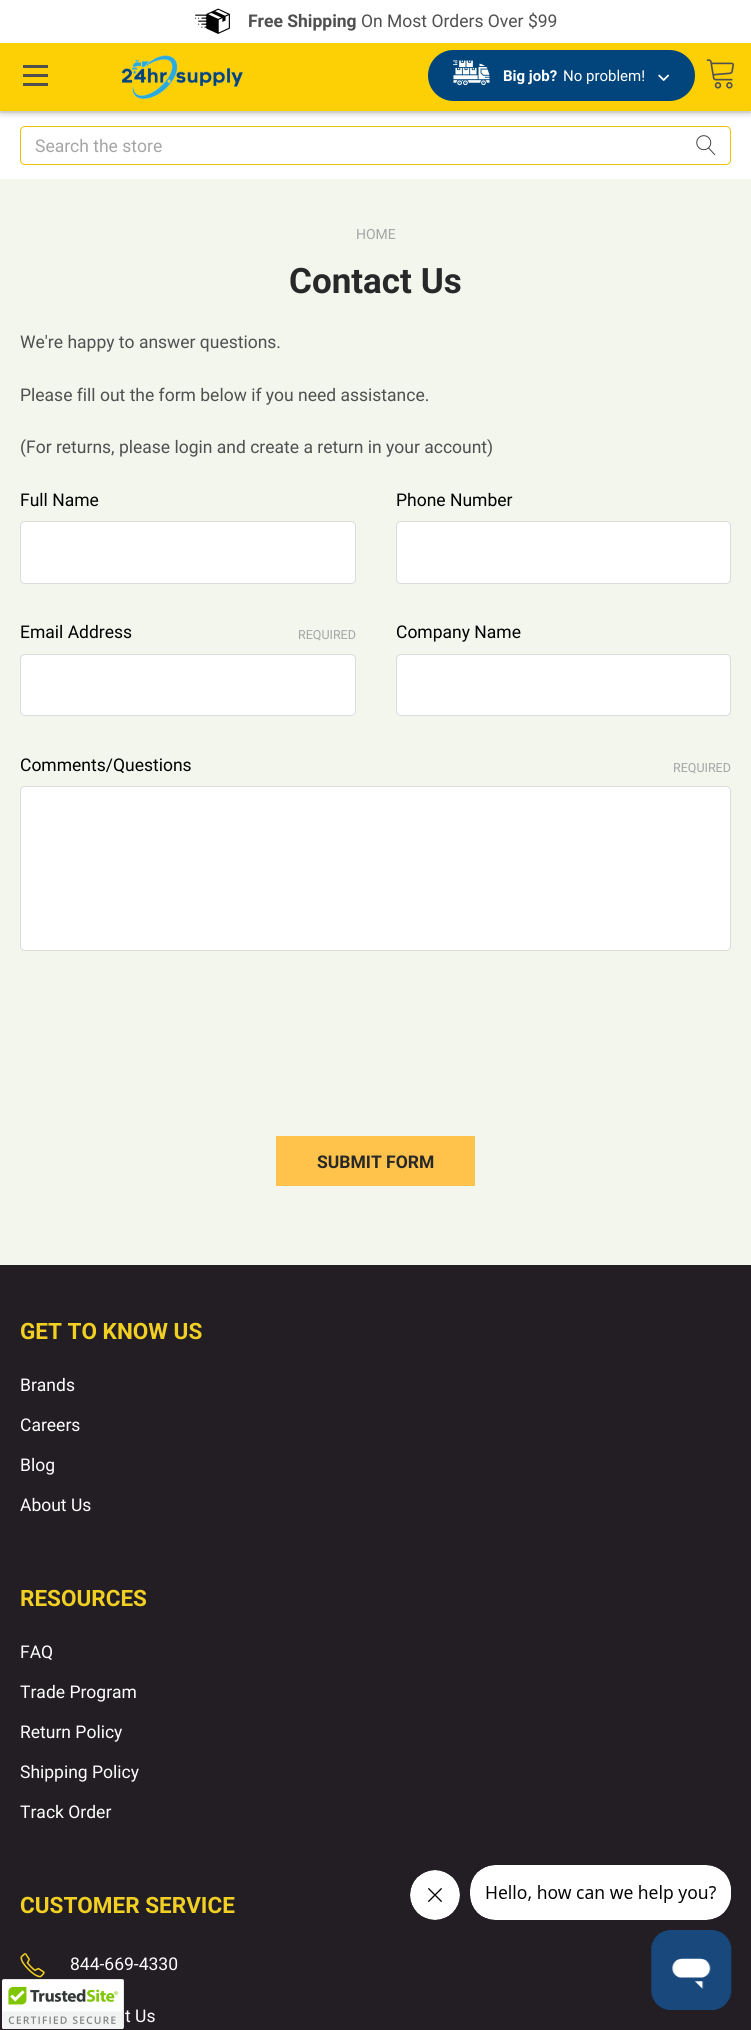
import math
import cairo

surface = cairo.ImageSurface(cairo.FORMAT_RGB24, 751, 2030)
ctx = cairo.Context(surface)
options = cairo.FontOptions()
options.set_hint_metrics(cairo.HINT_METRICS_OFF)
options.set_hint_style(cairo.HINT_STYLE_NONE)
ctx.set_font_options(options)
ctx.set_miter_limit(4)


def round_rect(x, y, w, h, r):
    ctx.new_sub_path()
    for i, (u, v) in enumerate([(x + w - r, y + h - r), (x + r, y + h - r), (x + r, y + r), (x + w - r, y + r)]):
        ctx.arc(u, v, r, i * math.pi / 2, (i + 1) * math.pi / 2)
    ctx.close_path()


def shadow(x, y, w, h, r, blur, alpha):
    ctx.push_group_with_content(cairo.CONTENT_ALPHA)
    ctx.set_operator(cairo.OPERATOR_SOURCE)
    for i in range(15, -16, -2):
        e = blur * i / 6
        if min(w, h) + 2 * e > 0:
            ctx.set_source_rgba(0, 0, 0, alpha * math.erfc((i - 1) / 8.5) / 2)
            round_rect(x - e, y - e, w + 2 * e, h + 2 * e, max(0, min(r + e + blur * .6, min(w, h) / 2 + e)))
            ctx.fill()
    ctx.mask(ctx.pop_group())


def picture(path, x, y, w, h):
    ctx.save()
    ctx.set_source_surface(cairo.ImageSurface.create_from_png(path), x, y)
    ctx.rectangle(x, y, w, h)
    ctx.fill()
    ctx.restore()


ctx.set_source_rgb(0.949, 0.961, 0.929)
ctx.paint()
ctx.set_source_rgb(1, 1, 1)
ctx.rectangle(0, 113, 751, 66)
ctx.fill()
ctx.set_source_rgb(0, 0, 0)
shadow(0, 3, 751, 111, 0, 3, 0.2)
ctx.set_source_rgb(1, 1, 1)
ctx.rectangle(0, 0, 751, 43)
ctx.fill()
picture("img1.png", 195, 8, 35, 26)
ctx.select_font_face("Roboto", cairo.FONT_SLANT_NORMAL, cairo.FONT_WEIGHT_BOLD)
ctx.set_font_size(17.5)
ctx.set_source_rgb(0.314, 0.314, 0.314)
ctx.move_to(248, 27)
ctx.show_text("Free Shipping")
ctx.select_font_face("Roboto")
ctx.move_to(361, 27)
ctx.show_text("On Most Orders Over $99")
ctx.set_source_rgb(0.992, 0.816, 0.027)
ctx.rectangle(0, 43, 751, 68)
ctx.fill()
ctx.set_source_rgb(0.314, 0.314, 0.314)
ctx.rectangle(23, 74, 25, 3)
ctx.fill()
ctx.rectangle(23, 65, 25, 3)
ctx.fill()
ctx.rectangle(23, 83, 25, 3)
ctx.fill()
picture("img2.png", 121, 55, 122, 44)
ctx.set_source_rgb(0.004, 0.271, 0.486)
round_rect(428, 50, 267, 51, 25.5)
ctx.fill()
picture("img3.png", 453, 60, 37, 25)
ctx.select_font_face("Roboto", cairo.FONT_SLANT_NORMAL, cairo.FONT_WEIGHT_BOLD)
ctx.set_font_size(15)
ctx.set_source_rgb(1, 1, 1)
ctx.move_to(503, 81)
ctx.show_text("Big job?")
ctx.select_font_face("Roboto")
ctx.move_to(563, 81)
ctx.show_text("No problem!")
picture("img4.png", 658, 74, 12, 7)
picture("img5.png", 706, 59, 28, 30)
round_rect(20.5, 126.5, 710, 38, 4.5)
ctx.set_source_rgb(0.929, 0.765, 0.027)
ctx.set_line_width(1)
ctx.stroke()
ctx.set_font_size(17.5)
ctx.set_source_rgb(0.647, 0.647, 0.647)
ctx.move_to(35, 152)
ctx.show_text("Search the store")
picture("img6.png", 696, 135, 20, 21)
ctx.set_font_size(14)
ctx.move_to(356, 239)
ctx.show_text("HOME")
ctx.select_font_face("Roboto", cairo.FONT_SLANT_NORMAL, cairo.FONT_WEIGHT_BOLD)
ctx.set_font_size(35)
ctx.set_source_rgb(0.157, 0.157, 0.157)
ctx.move_to(289, 293)
ctx.show_text("Contact Us")
ctx.select_font_face("Roboto")
ctx.set_font_size(17.5)
ctx.set_source_rgb(0.314, 0.314, 0.314)
ctx.move_to(20, 348)
ctx.show_text("We're happy to answer questions.")
ctx.move_to(20, 401)
ctx.show_text("Please fill out the form below if you need assistance.")
ctx.move_to(20, 453)
ctx.show_text("(For returns, please login and create a return in your account)")
ctx.set_source_rgb(0, 0, 0)
ctx.move_to(20, 506)
ctx.show_text("Full Name")
ctx.set_source_rgb(1, 1, 1)
round_rect(20.5, 521.5, 335, 62, 4.5)
ctx.fill_preserve()
ctx.set_source_rgb(0.863, 0.863, 0.863)
ctx.stroke()
ctx.set_source_rgb(0, 0, 0)
ctx.move_to(396, 506)
ctx.show_text("Phone Number")
ctx.set_source_rgb(1, 1, 1)
round_rect(396.5, 521.5, 334, 62, 4.5)
ctx.fill_preserve()
ctx.set_source_rgb(0.863, 0.863, 0.863)
ctx.stroke()
ctx.set_source_rgb(0, 0, 0)
ctx.move_to(20, 638)
ctx.show_text("Email Address")
ctx.set_font_size(12.5)
ctx.set_source_rgb(0.647, 0.647, 0.647)
ctx.move_to(298, 639)
ctx.show_text("REQUIRED")
ctx.set_source_rgb(1, 1, 1)
round_rect(20.5, 654.5, 335, 61, 4.5)
ctx.fill_preserve()
ctx.set_source_rgb(0.863, 0.863, 0.863)
ctx.stroke()
ctx.set_font_size(17.5)
ctx.set_source_rgb(0, 0, 0)
ctx.move_to(396, 638)
ctx.show_text("Company Name")
ctx.set_source_rgb(1, 1, 1)
round_rect(396.5, 654.5, 334, 61, 4.5)
ctx.fill_preserve()
ctx.set_source_rgb(0.863, 0.863, 0.863)
ctx.stroke()
ctx.set_source_rgb(0, 0, 0)
ctx.move_to(20, 771)
ctx.show_text("Comments/Questions")
ctx.set_font_size(12.5)
ctx.set_source_rgb(0.647, 0.647, 0.647)
ctx.move_to(673, 772)
ctx.show_text("REQUIRED")
ctx.set_source_rgb(1, 1, 1)
round_rect(20.5, 786.5, 710, 164, 4.5)
ctx.fill_preserve()
ctx.set_source_rgb(0.863, 0.863, 0.863)
ctx.stroke()
ctx.set_source_rgb(1, 0.765, 0.294)
ctx.rectangle(276, 1136, 199, 50)
ctx.fill()
ctx.select_font_face("Roboto", cairo.FONT_SLANT_NORMAL, cairo.FONT_WEIGHT_BOLD)
ctx.set_font_size(17.5)
ctx.set_source_rgb(0.157, 0.157, 0.157)
ctx.move_to(317, 1168)
ctx.show_text("SUBMIT FORM")
ctx.set_source_rgb(0.137, 0.118, 0.141)
ctx.rectangle(0, 1265, 751, 765)
ctx.fill()
ctx.set_font_size(22.5)
ctx.set_source_rgb(0.945, 0.816, 0.137)
ctx.move_to(20, 1339)
ctx.show_text("GET TO KNOW US")
ctx.select_font_face("Roboto")
ctx.set_font_size(17.5)
ctx.set_source_rgb(1, 1, 1)
ctx.move_to(20, 1391)
ctx.show_text("Brands")
ctx.move_to(20, 1431)
ctx.show_text("Careers")
ctx.move_to(20, 1471)
ctx.show_text("Blog")
ctx.move_to(20, 1511)
ctx.show_text("About Us")
ctx.select_font_face("Roboto", cairo.FONT_SLANT_NORMAL, cairo.FONT_WEIGHT_BOLD)
ctx.set_font_size(22.5)
ctx.set_source_rgb(0.945, 0.816, 0.137)
ctx.move_to(20, 1606)
ctx.show_text("RESOURCES")
ctx.select_font_face("Roboto")
ctx.set_font_size(17.5)
ctx.set_source_rgb(1, 1, 1)
ctx.move_to(20, 1658)
ctx.show_text("FAQ")
ctx.move_to(20, 1698)
ctx.show_text("Trade Program")
ctx.move_to(20, 1738)
ctx.show_text("Return Policy")
ctx.move_to(20, 1778)
ctx.show_text("Shipping Policy")
ctx.move_to(20, 1818)
ctx.show_text("Track Order")
ctx.select_font_face("Roboto", cairo.FONT_SLANT_NORMAL, cairo.FONT_WEIGHT_BOLD)
ctx.set_font_size(22.5)
ctx.set_source_rgb(0.945, 0.816, 0.137)
ctx.move_to(20, 1913)
ctx.show_text("CUSTOMER SERVICE")
picture("img7.png", 20, 1953, 25, 25)
ctx.select_font_face("Roboto")
ctx.set_font_size(17.5)
ctx.set_source_rgb(1, 1, 1)
ctx.move_to(70, 1970)
ctx.show_text("844-669-4330")
ctx.move_to(125, 2022)
ctx.show_text("t Us")
picture("img8.png", 2, 1979, 122, 50)
picture("img9.png", 410, 1870, 50, 50)
picture("img10.png", 470, 1865, 261, 55)
picture("img11.png", 651, 1930, 81, 80)
surface.write_to_png("page.png")
